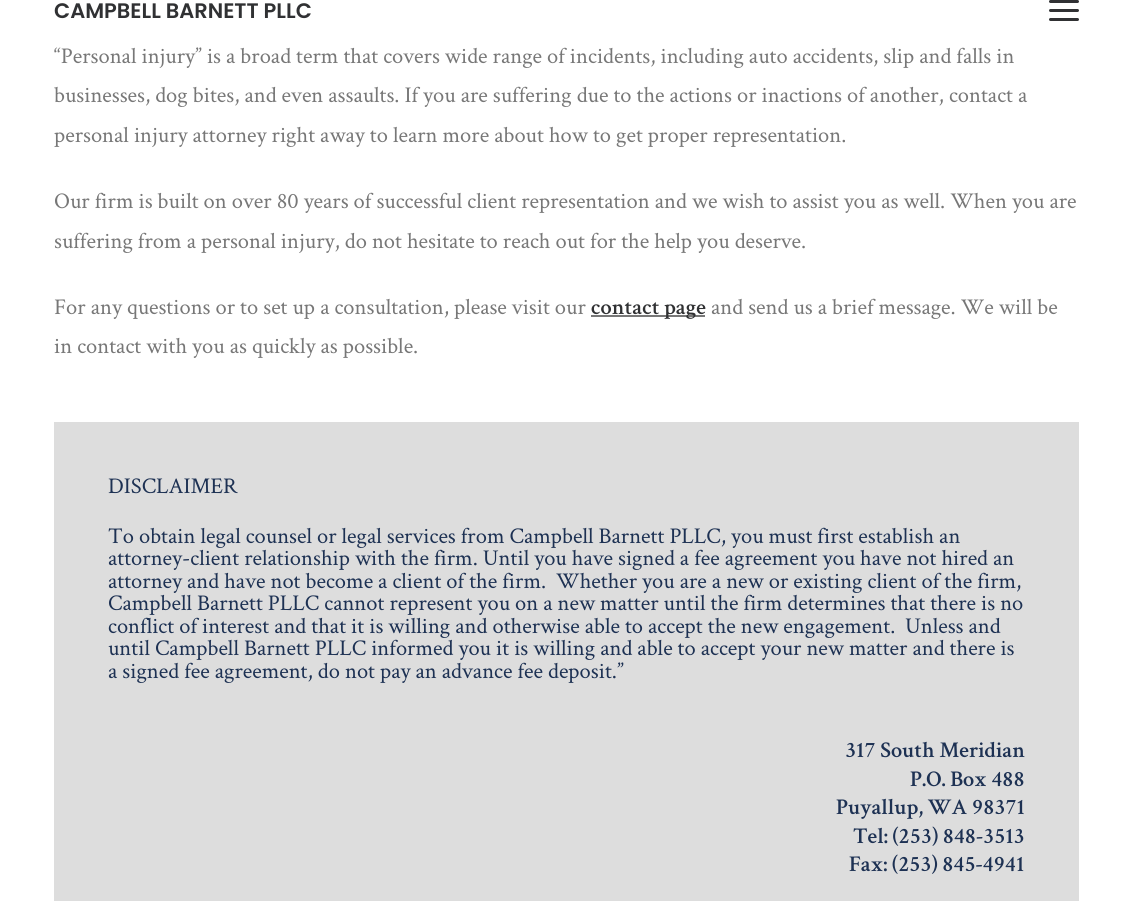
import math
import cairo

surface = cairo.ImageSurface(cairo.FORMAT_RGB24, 1132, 901)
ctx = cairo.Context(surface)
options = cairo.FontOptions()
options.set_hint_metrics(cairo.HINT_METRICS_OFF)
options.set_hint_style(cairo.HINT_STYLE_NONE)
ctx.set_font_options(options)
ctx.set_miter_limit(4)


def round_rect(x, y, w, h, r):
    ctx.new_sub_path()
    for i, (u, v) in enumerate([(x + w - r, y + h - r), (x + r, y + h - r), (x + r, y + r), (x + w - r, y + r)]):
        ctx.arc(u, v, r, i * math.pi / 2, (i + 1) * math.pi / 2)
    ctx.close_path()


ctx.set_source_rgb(1, 1, 1)
ctx.paint()
ctx.select_font_face("Poppins SemiBold")
ctx.set_font_size(21)
ctx.set_source_rgb(0.188, 0.192, 0.2)
ctx.move_to(54, 18)
ctx.show_text("CAMPBELL BARNETT PLLC")
round_rect(1049, 9, 30, 3, 1.5)
ctx.fill()
round_rect(1049, 0, 30, 3, 1.5)
ctx.fill()
round_rect(1049, 18, 30, 3, 1.5)
ctx.fill()
ctx.select_font_face("Crimson Text")
ctx.set_font_size(22.5)
ctx.set_source_rgb(0.467, 0.467, 0.467)
ctx.move_to(54, 63)
ctx.show_text("“Personal injury” is a broad term that covers wide range of incidents, including auto accidents, slip and falls in")
ctx.move_to(54, 102)
ctx.show_text("businesses, dog bites, and even assaults. If you are suffering due to the actions or inactions of another, contact a")
ctx.move_to(54, 142)
ctx.show_text("personal injury attorney right away to learn more about how to get proper representation.")
ctx.move_to(54, 208)
ctx.show_text("Our firm is built on over 80 years of successful client representation and we wish to assist you as well. When you are")
ctx.move_to(54, 248)
ctx.show_text("suffering from a personal injury, do not hesitate to reach out for the help you deserve.")
ctx.move_to(54, 314)
ctx.show_text("For any questions or to set up a consultation, please visit our")
ctx.rectangle(591, 315, 114, 2)
ctx.fill()
ctx.select_font_face("Crimson Text SemiBold")
ctx.set_source_rgb(0.188, 0.192, 0.2)
ctx.move_to(591, 314)
ctx.show_text("contact page")
ctx.select_font_face("Crimson Text")
ctx.set_source_rgb(0.467, 0.467, 0.467)
ctx.move_to(711, 314)
ctx.show_text("and send us a brief message. We will be")
ctx.move_to(54, 353)
ctx.show_text("in contact with you as quickly as possible.")
ctx.set_source_rgb(0.867, 0.867, 0.867)
ctx.rectangle(54, 422, 1025, 479)
ctx.fill()
ctx.set_source_rgb(0.114, 0.192, 0.325)
ctx.move_to(108, 493)
ctx.show_text("DISCLAIMER")
ctx.move_to(108, 543)
ctx.show_text("To obtain legal counsel or legal services from Campbell Barnett PLLC, you must first establish an")
ctx.move_to(108, 565)
ctx.show_text("attorney-client relationship with the firm. Until you have signed a fee agreement you have not hired an")
ctx.move_to(108, 588)
ctx.show_text("attorney and have not become a client of the firm.")
ctx.move_to(556, 588)
ctx.show_text("Whether you are a new or existing client of the firm,")
ctx.move_to(108, 610)
ctx.show_text("Campbell Barnett PLLC cannot represent you on a new matter until the firm determines that there is no")
ctx.move_to(108, 633)
ctx.show_text("conflict of interest and that it is willing and otherwise able to accept the new engagement.")
ctx.move_to(905, 633)
ctx.show_text("Unless and")
ctx.move_to(108, 655)
ctx.show_text("until Campbell Barnett PLLC informed you it is willing and able to accept your new matter and there is")
ctx.move_to(108, 678)
ctx.show_text("a signed fee agreement, do not pay an advance fee deposit.”")
ctx.select_font_face("Crimson Text SemiBold")
ctx.move_to(845, 757)
ctx.show_text("317 South Meridian")
ctx.move_to(910, 786)
ctx.show_text("P.O. Box 488")
ctx.move_to(836, 814)
ctx.show_text("Puyallup, WA 98371")
ctx.move_to(853, 843)
ctx.show_text("Tel: (253) 848-3513")
ctx.move_to(849, 871)
ctx.show_text("Fax: (253) 845-4941")
surface.write_to_png("page.png")
